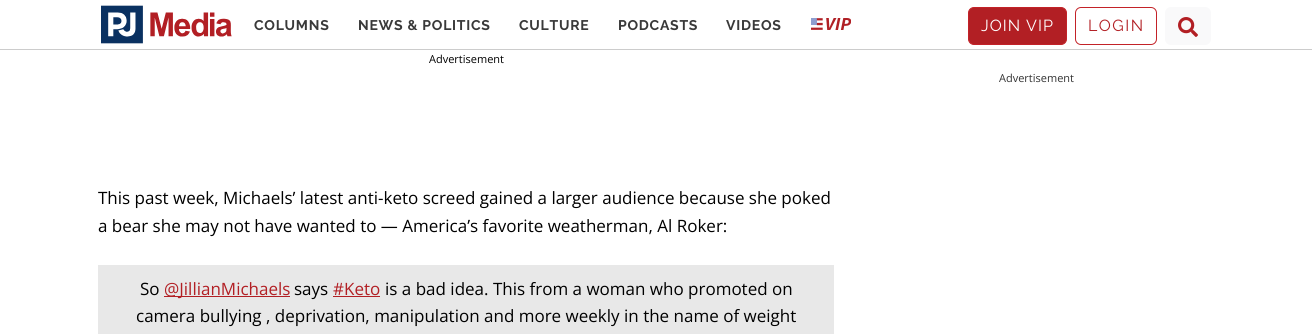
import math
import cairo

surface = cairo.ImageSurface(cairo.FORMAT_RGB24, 1312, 334)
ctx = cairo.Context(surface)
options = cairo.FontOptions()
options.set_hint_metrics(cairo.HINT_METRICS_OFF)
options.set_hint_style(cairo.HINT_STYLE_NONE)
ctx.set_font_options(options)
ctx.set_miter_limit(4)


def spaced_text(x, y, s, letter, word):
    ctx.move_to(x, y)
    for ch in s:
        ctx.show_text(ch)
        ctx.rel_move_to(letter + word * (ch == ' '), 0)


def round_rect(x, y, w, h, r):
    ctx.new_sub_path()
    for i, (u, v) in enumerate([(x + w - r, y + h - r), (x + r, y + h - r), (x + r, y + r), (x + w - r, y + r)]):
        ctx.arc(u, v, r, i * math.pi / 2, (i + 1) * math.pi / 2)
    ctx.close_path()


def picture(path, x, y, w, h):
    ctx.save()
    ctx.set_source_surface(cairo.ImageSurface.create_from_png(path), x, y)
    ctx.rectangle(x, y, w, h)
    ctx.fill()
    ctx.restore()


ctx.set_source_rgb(1, 1, 1)
ctx.paint()
ctx.set_source_rgb(0.8, 0.8, 0.8)
ctx.rectangle(0, 49, 1312, 1)
ctx.fill()
picture("img1.png", 101, 5, 131, 39)
ctx.select_font_face("Raleway", cairo.FONT_SLANT_NORMAL, cairo.FONT_WEIGHT_BOLD)
ctx.set_font_size(14)
ctx.set_source_rgb(0.224, 0.224, 0.224)
spaced_text(254, 30, "COLUMNS", 0.75, 0)
spaced_text(358, 30, "NEWS & POLITICS", 0.75, 0)
spaced_text(519, 30, "CULTURE", 0.75, 0)
spaced_text(618, 30, "PODCASTS", 0.75, 0)
spaced_text(726, 30, "VIDEOS", 0.75, 0)
picture("img2.png", 811, 18, 40, 12)
ctx.set_source_rgb(0.698, 0.122, 0.141)
round_rect(968.5, 7.5, 98, 37, 5.5)
ctx.fill_preserve()
ctx.set_source_rgb(0.765, 0.133, 0.157)
ctx.set_line_width(1)
ctx.stroke()
ctx.select_font_face("Raleway")
ctx.set_font_size(16)
ctx.set_source_rgb(1, 1, 1)
spaced_text(981, 31, "JOIN VIP", 1, 0)
round_rect(1075.5, 7.5, 81, 37, 5.5)
ctx.set_source_rgb(0.765, 0.133, 0.157)
ctx.stroke()
ctx.set_source_rgb(0.698, 0.122, 0.141)
spaced_text(1088, 31, "LOGIN", 1.5, 0)
ctx.set_source_rgb(0.973, 0.976, 0.98)
round_rect(1165, 7, 46, 38, 6)
ctx.fill()
picture("img3.png", 1178, 17, 20, 20)
ctx.select_font_face("Open Sans")
ctx.set_font_size(11)
ctx.set_source_rgb(0, 0, 0)
ctx.move_to(429, 63)
ctx.show_text("Advertisement")
ctx.set_font_size(17)
ctx.move_to(98, 204)
ctx.show_text("This past week, Michaels’ latest anti-keto screed gained a larger audience because she poked")
ctx.move_to(98, 232)
ctx.show_text("a bear she may not have wanted to — America’s favorite weatherman, Al Roker:")
ctx.set_source_rgb(0.91, 0.91, 0.91)
ctx.rectangle(98, 265, 736, 69)
ctx.fill()
ctx.set_source_rgb(0, 0, 0)
ctx.move_to(140, 295)
ctx.show_text("So")
ctx.set_source_rgb(0.698, 0.122, 0.141)
ctx.rectangle(164, 296, 126, 1)
ctx.fill()
ctx.move_to(164, 295)
ctx.show_text("@JillianMichaels")
ctx.set_source_rgb(0, 0, 0)
ctx.move_to(294, 295)
ctx.show_text("says")
ctx.set_source_rgb(0.698, 0.122, 0.141)
ctx.move_to(333, 295)
ctx.show_text("#Keto")
ctx.rectangle(333, 296, 47, 1)
ctx.fill()
ctx.set_source_rgb(0, 0, 0)
ctx.move_to(385, 295)
ctx.show_text("is a bad idea. This from a woman who promoted on")
ctx.move_to(136, 322)
ctx.show_text("camera bullying , deprivation, manipulation and more weekly in the name of weight")
ctx.set_font_size(11)
ctx.set_source_rgb(0.2, 0.2, 0.2)
ctx.move_to(999, 82)
ctx.show_text("Advertisement")
surface.write_to_png("page.png")
